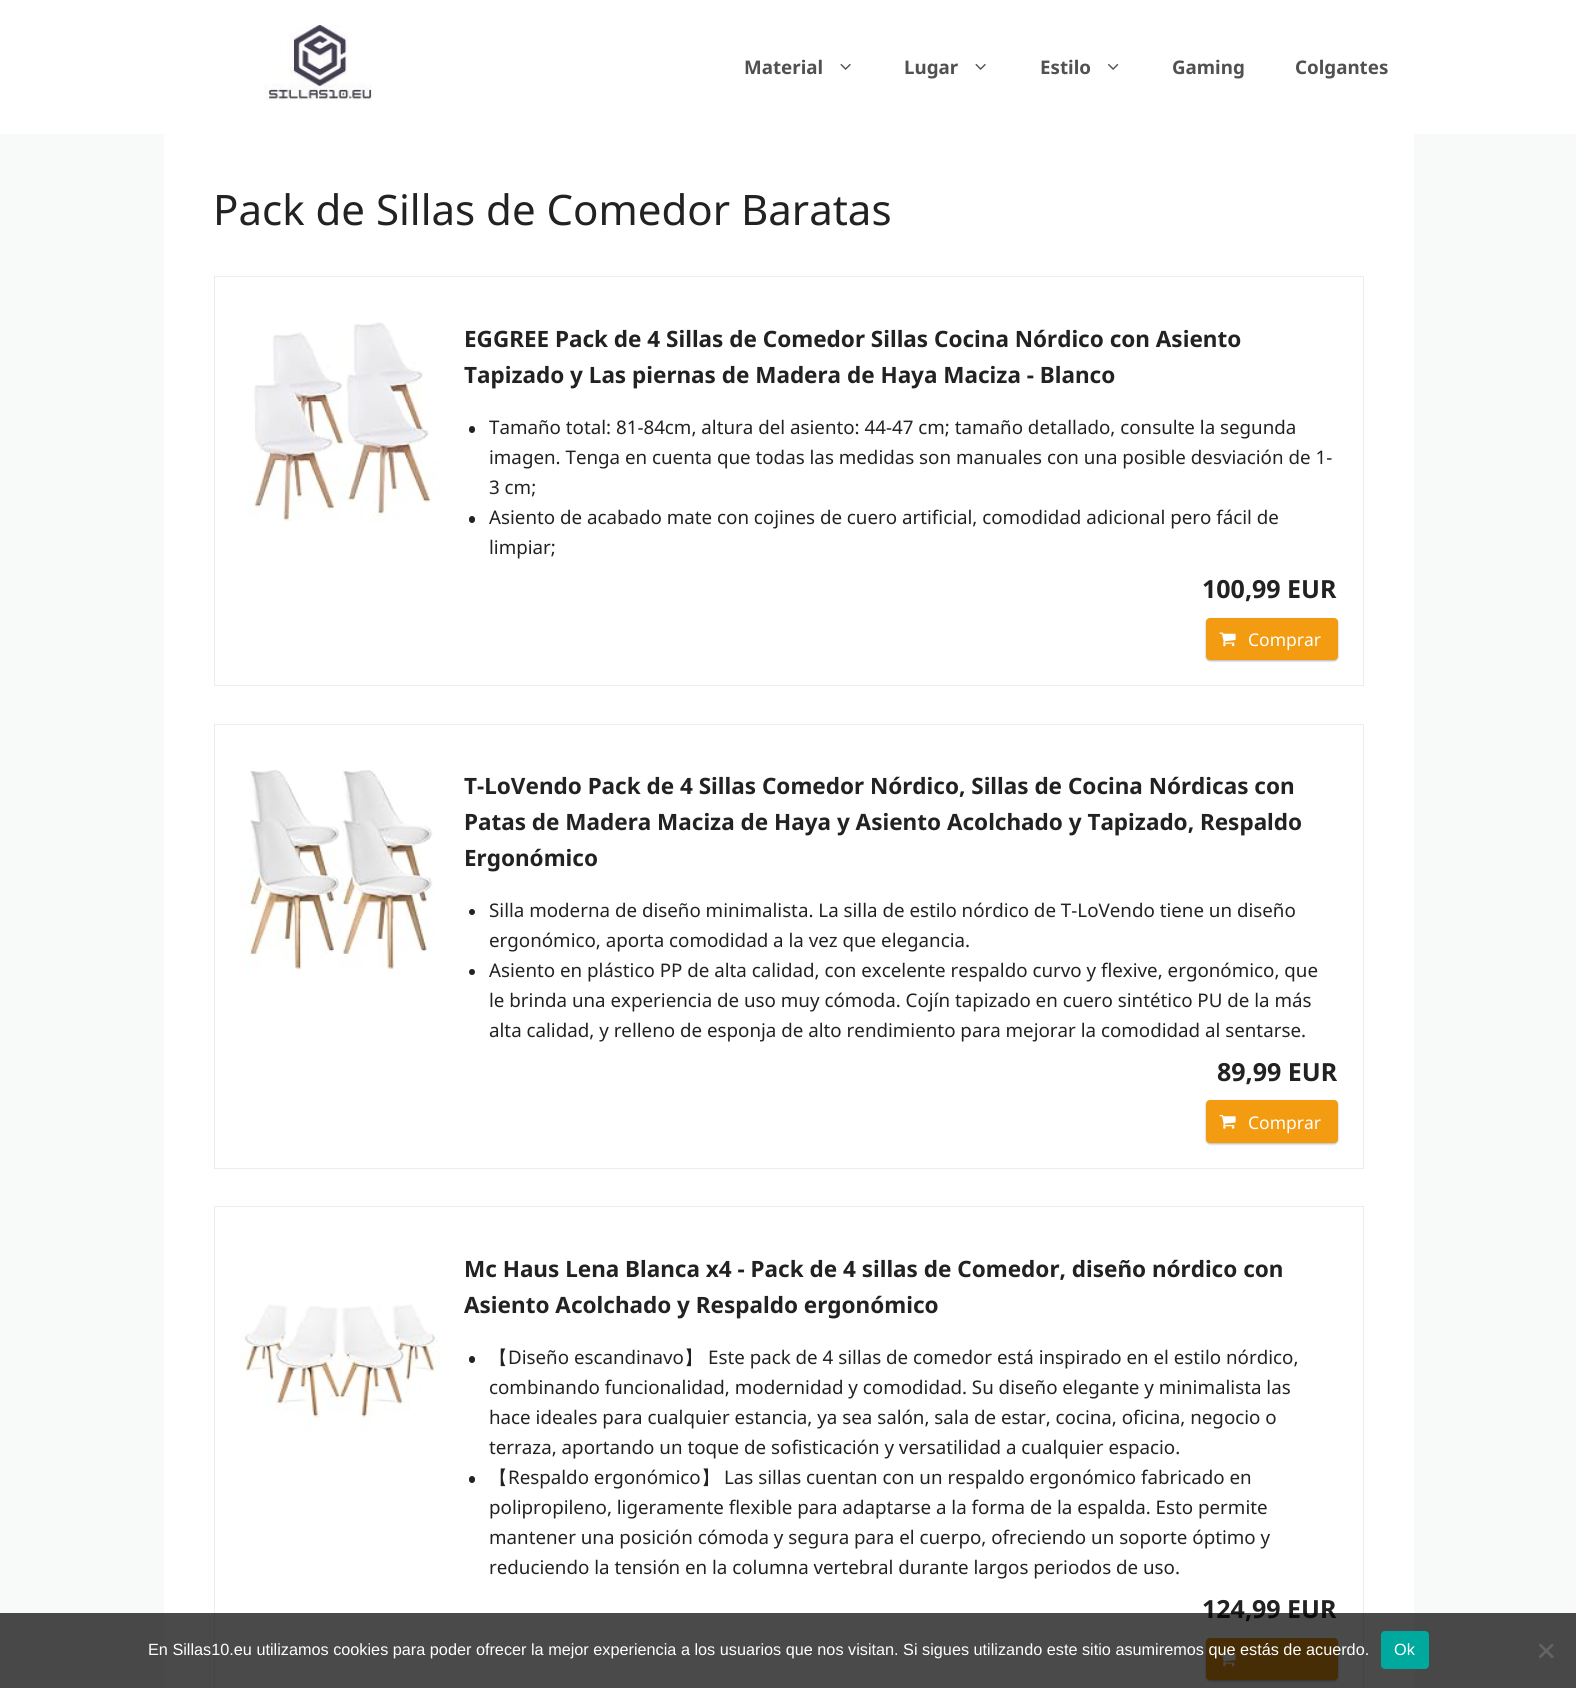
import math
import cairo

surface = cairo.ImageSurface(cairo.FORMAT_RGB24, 1576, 1688)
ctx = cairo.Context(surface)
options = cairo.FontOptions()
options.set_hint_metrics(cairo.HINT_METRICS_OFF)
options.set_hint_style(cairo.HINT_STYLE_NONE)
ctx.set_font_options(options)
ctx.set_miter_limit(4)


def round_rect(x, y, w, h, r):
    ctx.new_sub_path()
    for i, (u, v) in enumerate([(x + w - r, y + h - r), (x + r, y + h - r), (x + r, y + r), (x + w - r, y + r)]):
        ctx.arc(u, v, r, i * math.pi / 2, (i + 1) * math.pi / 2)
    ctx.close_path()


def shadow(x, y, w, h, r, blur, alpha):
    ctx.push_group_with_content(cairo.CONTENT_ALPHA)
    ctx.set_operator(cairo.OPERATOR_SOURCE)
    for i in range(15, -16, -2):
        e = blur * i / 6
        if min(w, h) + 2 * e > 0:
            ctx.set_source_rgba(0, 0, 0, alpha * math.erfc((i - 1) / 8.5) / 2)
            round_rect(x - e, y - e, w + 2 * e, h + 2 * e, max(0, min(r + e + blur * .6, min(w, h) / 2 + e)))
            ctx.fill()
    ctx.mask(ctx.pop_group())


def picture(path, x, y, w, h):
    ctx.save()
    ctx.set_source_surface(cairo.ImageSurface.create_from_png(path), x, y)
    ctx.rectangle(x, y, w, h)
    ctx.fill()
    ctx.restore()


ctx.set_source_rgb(0.969, 0.973, 0.976)
ctx.paint()
ctx.set_source_rgb(1, 1, 1)
ctx.rectangle(0, 0, 1576, 134)
ctx.fill()
picture("img1.png", 264, 25, 108, 76)
ctx.select_font_face("Noto Sans", cairo.FONT_SLANT_NORMAL, cairo.FONT_WEIGHT_BOLD)
ctx.set_font_size(18.75)
ctx.set_source_rgb(0.318, 0.318, 0.318)
ctx.move_to(744, 74)
ctx.show_text("Material")
picture("img2.png", 840, 63, 11, 7)
ctx.move_to(904, 74)
ctx.show_text("Lugar")
picture("img2.png", 975, 63, 11, 7)
ctx.move_to(1040, 74)
ctx.show_text("Estilo")
picture("img3.png", 1108, 63, 11, 7)
ctx.move_to(1172, 74)
ctx.show_text("Gaming")
ctx.move_to(1295, 74)
ctx.show_text("Colgantes")
ctx.set_source_rgb(1, 1, 1)
ctx.rectangle(164, 134, 1250, 1554)
ctx.fill()
ctx.select_font_face("Noto Sans")
ctx.set_font_size(42)
ctx.set_source_rgb(0.133, 0.133, 0.133)
ctx.move_to(213, 225)
ctx.show_text("Pack de Sillas de Comedor Baratas")
ctx.rectangle(214.5, 276.5, 1149, 409)
ctx.set_source_rgb(0.925, 0.925, 0.925)
ctx.set_line_width(1)
ctx.stroke()
picture("img4.png", 246, 322, 194, 200)
ctx.select_font_face("Noto Sans", cairo.FONT_SLANT_NORMAL, cairo.FONT_WEIGHT_BOLD)
ctx.set_font_size(22.5)
ctx.set_source_rgb(0.133, 0.133, 0.133)
ctx.move_to(464, 347)
ctx.show_text("EGGREE Pack de 4 Sillas de Comedor Sillas Cocina Nórdico con Asiento")
ctx.move_to(464, 383)
ctx.show_text("Tapizado y Las piernas de Madera de Haya Maciza - Blanco")
round_rect(469, 426, 6, 7, 3)
ctx.fill()
ctx.select_font_face("Noto Sans")
ctx.set_font_size(18.75)
ctx.move_to(489, 434)
ctx.show_text("Tamaño total: 81-84cm, altura del asiento: 44-47 cm; tamaño detallado, consulte la segunda")
ctx.move_to(489, 464)
ctx.show_text("imagen. Tenga en cuenta que todas las medidas son manuales con una posible desviación de 1-")
ctx.move_to(489, 494)
ctx.show_text("3 cm;")
round_rect(469, 516, 6, 7, 3)
ctx.fill()
ctx.move_to(489, 524)
ctx.show_text("Asiento de acabado mate con cojines de cuero artificial, comodidad adicional pero fácil de")
ctx.move_to(489, 554)
ctx.show_text("limpiar;")
ctx.select_font_face("Noto Sans", cairo.FONT_SLANT_NORMAL, cairo.FONT_WEIGHT_BOLD)
ctx.set_font_size(25)
ctx.move_to(1202, 598)
ctx.show_text("100,99 EUR")
ctx.set_source_rgb(0, 0, 0)
shadow(1206, 619, 132, 42, 4, 1, 0.3)
ctx.set_source_rgb(0.953, 0.612, 0.071)
round_rect(1206.5, 618.5, 131, 41, 3.5)
ctx.fill_preserve()
ctx.stroke()
picture("img5.png", 1219, 632, 17, 15)
ctx.select_font_face("Noto Sans")
ctx.set_font_size(17.5)
ctx.set_source_rgb(1, 1, 1)
ctx.move_to(1248, 646)
ctx.show_text("Comprar")
ctx.rectangle(214.5, 724.5, 1149, 444)
ctx.set_source_rgb(0.925, 0.925, 0.925)
ctx.stroke()
picture("img6.png", 240, 770, 195, 199)
ctx.select_font_face("Noto Sans", cairo.FONT_SLANT_NORMAL, cairo.FONT_WEIGHT_BOLD)
ctx.set_font_size(22.5)
ctx.set_source_rgb(0.133, 0.133, 0.133)
ctx.move_to(464, 794)
ctx.show_text("T-LoVendo Pack de 4 Sillas Comedor Nórdico, Sillas de Cocina Nórdicas con")
ctx.move_to(464, 830)
ctx.show_text("Patas de Madera Maciza de Haya y Asiento Acolchado y Tapizado, Respaldo")
ctx.move_to(464, 866)
ctx.show_text("Ergonómico")
ctx.new_path()
ctx.arc(472, 912, 3, 0, 2 * math.pi)
ctx.fill()
ctx.select_font_face("Noto Sans")
ctx.set_font_size(18.75)
ctx.move_to(489, 917)
ctx.show_text("Silla moderna de diseño minimalista. La silla de estilo nórdico de T-LoVendo tiene un diseño")
ctx.move_to(489, 947)
ctx.show_text("ergonómico, aporta comodidad a la vez que elegancia.")
ctx.new_path()
ctx.arc(472, 972, 3, 0, 2 * math.pi)
ctx.fill()
ctx.move_to(489, 977)
ctx.show_text("Asiento en plástico PP de alta calidad, con excelente respaldo curvo y flexive, ergonómico, que")
ctx.move_to(489, 1007)
ctx.show_text("le brinda una experiencia de uso muy cómoda. Cojín tapizado en cuero sintético PU de la más")
ctx.move_to(489, 1037)
ctx.show_text("alta calidad, y relleno de esponja de alto rendimiento para mejorar la comodidad al sentarse.")
ctx.select_font_face("Noto Sans", cairo.FONT_SLANT_NORMAL, cairo.FONT_WEIGHT_BOLD)
ctx.set_font_size(25)
ctx.move_to(1217, 1081)
ctx.show_text("89,99 EUR")
ctx.set_source_rgb(0, 0, 0)
shadow(1206, 1101, 132, 43, 4, 1, 0.3)
ctx.set_source_rgb(0.953, 0.612, 0.071)
round_rect(1206.5, 1100.5, 131, 42, 3.5)
ctx.fill_preserve()
ctx.stroke()
picture("img7.png", 1219, 1115, 17, 14)
ctx.select_font_face("Noto Sans")
ctx.set_font_size(17.5)
ctx.set_source_rgb(1, 1, 1)
ctx.move_to(1248, 1129)
ctx.show_text("Comprar")
ctx.rectangle(214.5, 1206.5, 1149, 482)
ctx.set_source_rgb(0.925, 0.925, 0.925)
ctx.stroke()
picture("img8.png", 240, 1304, 200, 127)
ctx.select_font_face("Noto Sans", cairo.FONT_SLANT_NORMAL, cairo.FONT_WEIGHT_BOLD)
ctx.set_font_size(22.5)
ctx.set_source_rgb(0.133, 0.133, 0.133)
ctx.move_to(464, 1277)
ctx.show_text("Mc Haus Lena Blanca x4 - Pack de 4 sillas de Comedor, diseño nórdico con")
ctx.move_to(464, 1313)
ctx.show_text("Asiento Acolchado y Respaldo ergonómico")
round_rect(469, 1356, 6, 7, 3)
ctx.fill()
ctx.select_font_face("WenQuanYi Zen Hei Medium")
ctx.set_font_size(18.75)
ctx.move_to(489, 1364)
ctx.show_text("【")
ctx.select_font_face("Noto Sans")
ctx.move_to(508, 1364)
ctx.show_text("Diseño escandinavo")
ctx.select_font_face("WenQuanYi Zen Hei Medium")
ctx.move_to(684, 1364)
ctx.show_text("】")
ctx.select_font_face("Noto Sans")
ctx.move_to(708, 1364)
ctx.show_text("Este pack de 4 sillas de comedor está inspirado en el estilo nórdico,")
ctx.move_to(489, 1394)
ctx.show_text("combinando funcionalidad, modernidad y comodidad. Su diseño elegante y minimalista las")
ctx.move_to(489, 1424)
ctx.show_text("hace ideales para cualquier estancia, ya sea salón, sala de estar, cocina, oficina, negocio o")
ctx.move_to(489, 1454)
ctx.show_text("terraza, aportando un toque de sofisticación y versatilidad a cualquier espacio.")
round_rect(469, 1476, 6, 7, 3)
ctx.fill()
ctx.select_font_face("WenQuanYi Zen Hei Medium")
ctx.move_to(489, 1484)
ctx.show_text("【")
ctx.select_font_face("Noto Sans")
ctx.move_to(508, 1484)
ctx.show_text("Respaldo ergonómico")
ctx.select_font_face("WenQuanYi Zen Hei Medium")
ctx.move_to(701, 1484)
ctx.show_text("】")
ctx.select_font_face("Noto Sans")
ctx.move_to(724, 1484)
ctx.show_text("Las sillas cuentan con un respaldo ergonómico fabricado en")
ctx.move_to(489, 1514)
ctx.show_text("polipropileno, ligeramente flexible para adaptarse a la forma de la espalda. Esto permite")
ctx.move_to(489, 1544)
ctx.show_text("mantener una posición cómoda y segura para el cuerpo, ofreciendo un soporte óptimo y")
ctx.move_to(489, 1574)
ctx.show_text("reduciendo la tensión en la columna vertebral durante largos periodos de uso.")
ctx.select_font_face("Noto Sans", cairo.FONT_SLANT_NORMAL, cairo.FONT_WEIGHT_BOLD)
ctx.set_font_size(25)
ctx.move_to(1202, 1618)
ctx.show_text("124,99 EUR")
ctx.set_source_rgb(0, 0, 0)
shadow(1206, 1639, 132, 42, 4, 1, 0.3)
ctx.set_source_rgb(0.953, 0.612, 0.071)
round_rect(1206.5, 1638.5, 131, 41, 3.5)
ctx.fill_preserve()
ctx.stroke()
picture("img5.png", 1219, 1652, 17, 15)
ctx.set_source_rgba(0, 0, 0, 0.71)
ctx.rectangle(0, 1613, 1576, 75)
ctx.fill()
ctx.select_font_face("Liberation Sans")
ctx.set_font_size(16.25)
ctx.set_source_rgb(1, 1, 1)
ctx.move_to(148, 1655)
ctx.show_text("En Sillas10.eu utilizamos cookies para poder ofrecer la mejor experiencia a los usuarios que nos visitan. Si sigues utilizando este sitio asumiremos que estás de acuerdo.")
ctx.set_source_rgb(0, 0.663, 0.616)
round_rect(1381, 1631, 48, 38, 4)
ctx.fill()
ctx.set_source_rgb(1, 1, 1)
ctx.move_to(1394, 1655)
ctx.show_text("Ok")
ctx.set_source_rgb(0.392, 0.392, 0.392)
ctx.new_path()
ctx.move_to(1552, 1643.5)
ctx.line_to(1554, 1645)
ctx.line_to(1540.5, 1658.5)
ctx.line_to(1538.5, 1656.5)
ctx.close_path()
ctx.fill()
ctx.new_path()
ctx.move_to(1538.5, 1645)
ctx.line_to(1540.5, 1643.5)
ctx.line_to(1554, 1656.5)
ctx.line_to(1552, 1658.5)
ctx.close_path()
ctx.fill()
surface.write_to_png("page.png")
